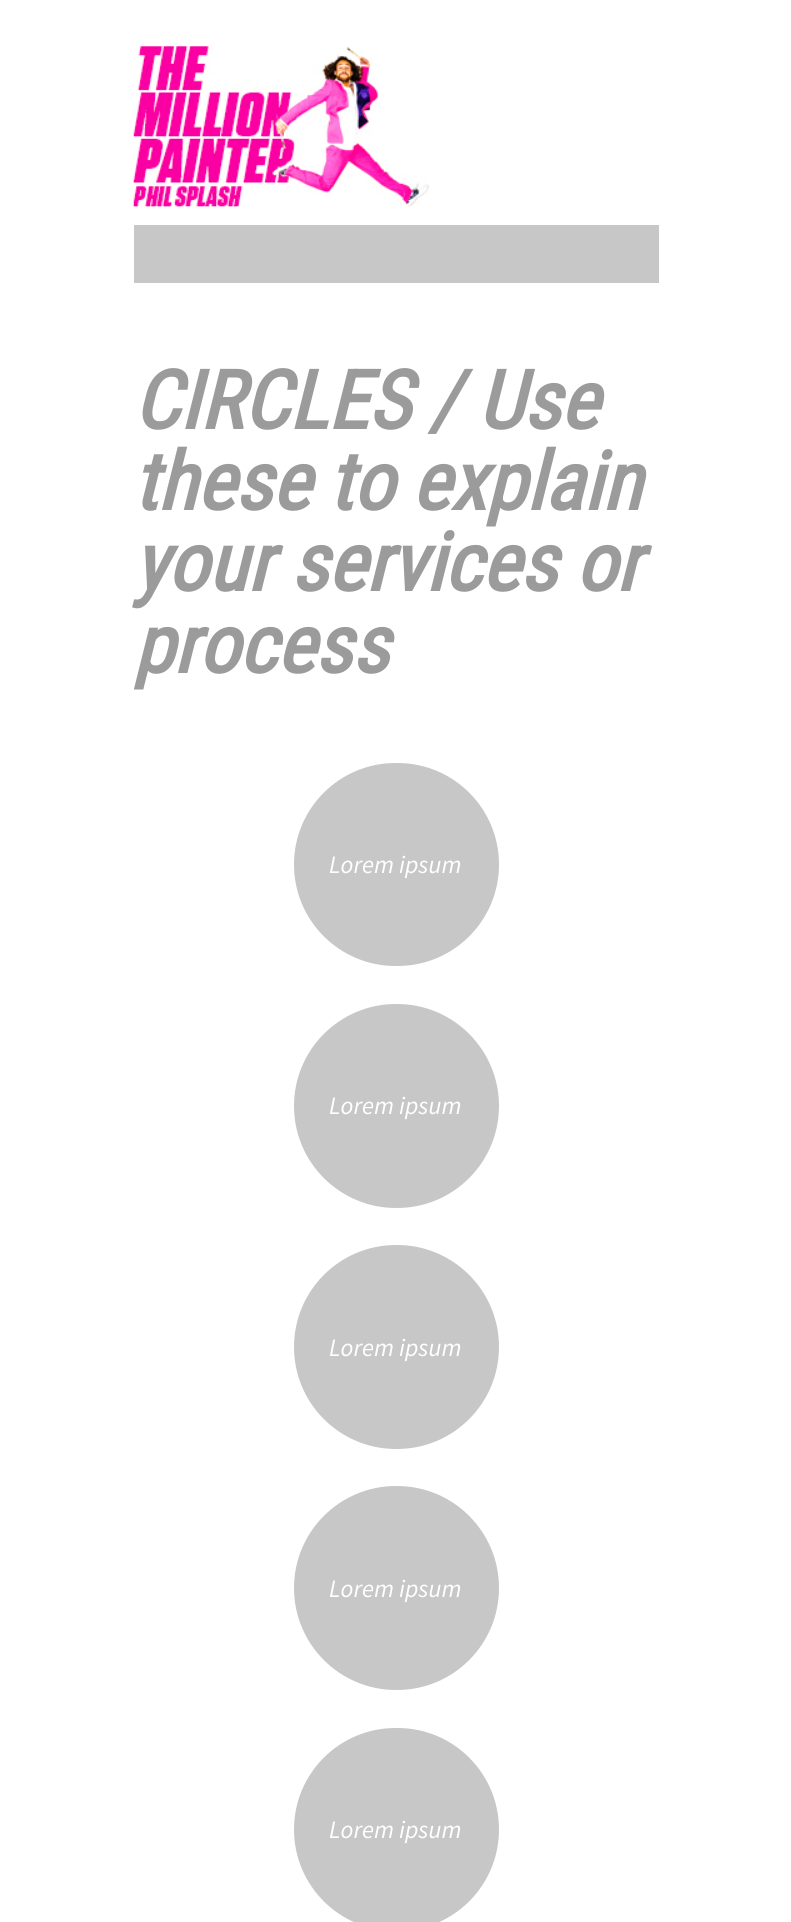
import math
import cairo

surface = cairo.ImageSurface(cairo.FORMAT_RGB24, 791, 1922)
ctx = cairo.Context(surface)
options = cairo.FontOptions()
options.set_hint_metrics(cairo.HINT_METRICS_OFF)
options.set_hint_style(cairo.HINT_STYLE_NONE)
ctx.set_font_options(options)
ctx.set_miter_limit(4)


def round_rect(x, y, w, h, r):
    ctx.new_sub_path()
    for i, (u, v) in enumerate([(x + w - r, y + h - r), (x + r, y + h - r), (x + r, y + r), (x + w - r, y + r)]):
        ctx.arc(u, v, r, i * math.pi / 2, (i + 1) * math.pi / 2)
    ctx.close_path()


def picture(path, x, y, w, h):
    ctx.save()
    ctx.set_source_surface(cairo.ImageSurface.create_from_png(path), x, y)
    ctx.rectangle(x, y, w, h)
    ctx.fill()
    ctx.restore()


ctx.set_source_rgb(1, 1, 1)
ctx.paint()
picture("img1.png", 133, 46, 296, 161)
ctx.set_source_rgb(0.78, 0.78, 0.78)
ctx.rectangle(134, 225, 525, 58)
ctx.fill()
ctx.select_font_face("Roboto Condensed", cairo.FONT_SLANT_ITALIC, cairo.FONT_WEIGHT_BOLD)
ctx.set_font_size(81.25)
ctx.set_source_rgb(0.608, 0.608, 0.608)
ctx.move_to(133, 429)
ctx.show_text("CIRCLES / Use")
ctx.move_to(133, 510)
ctx.show_text("these to explain")
ctx.move_to(133, 591)
ctx.show_text("your services or")
ctx.move_to(133, 673)
ctx.show_text("process")
ctx.set_source_rgb(0.78, 0.78, 0.78)
round_rect(294, 763, 205, 203, 101.5)
ctx.fill()
ctx.select_font_face("Source Sans Pro", cairo.FONT_SLANT_ITALIC)
ctx.set_font_size(25)
ctx.set_source_rgb(1, 1, 1)
ctx.move_to(329, 873)
ctx.show_text("Lorem ipsum")
ctx.set_source_rgb(0.78, 0.78, 0.78)
round_rect(294, 1004, 205, 204, 102)
ctx.fill()
ctx.set_source_rgb(1, 1, 1)
ctx.move_to(329, 1114)
ctx.show_text("Lorem ipsum")
ctx.set_source_rgb(0.78, 0.78, 0.78)
round_rect(294, 1245, 205, 204, 102)
ctx.fill()
ctx.set_source_rgb(1, 1, 1)
ctx.move_to(329, 1356)
ctx.show_text("Lorem ipsum")
ctx.set_source_rgb(0.78, 0.78, 0.78)
round_rect(294, 1486, 205, 204, 102)
ctx.fill()
ctx.set_source_rgb(1, 1, 1)
ctx.move_to(329, 1597)
ctx.show_text("Lorem ipsum")
ctx.set_source_rgb(0.78, 0.78, 0.78)
round_rect(294, 1728, 205, 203, 101.5)
ctx.fill()
ctx.set_source_rgb(1, 1, 1)
ctx.move_to(329, 1838)
ctx.show_text("Lorem ipsum")
surface.write_to_png("page.png")
